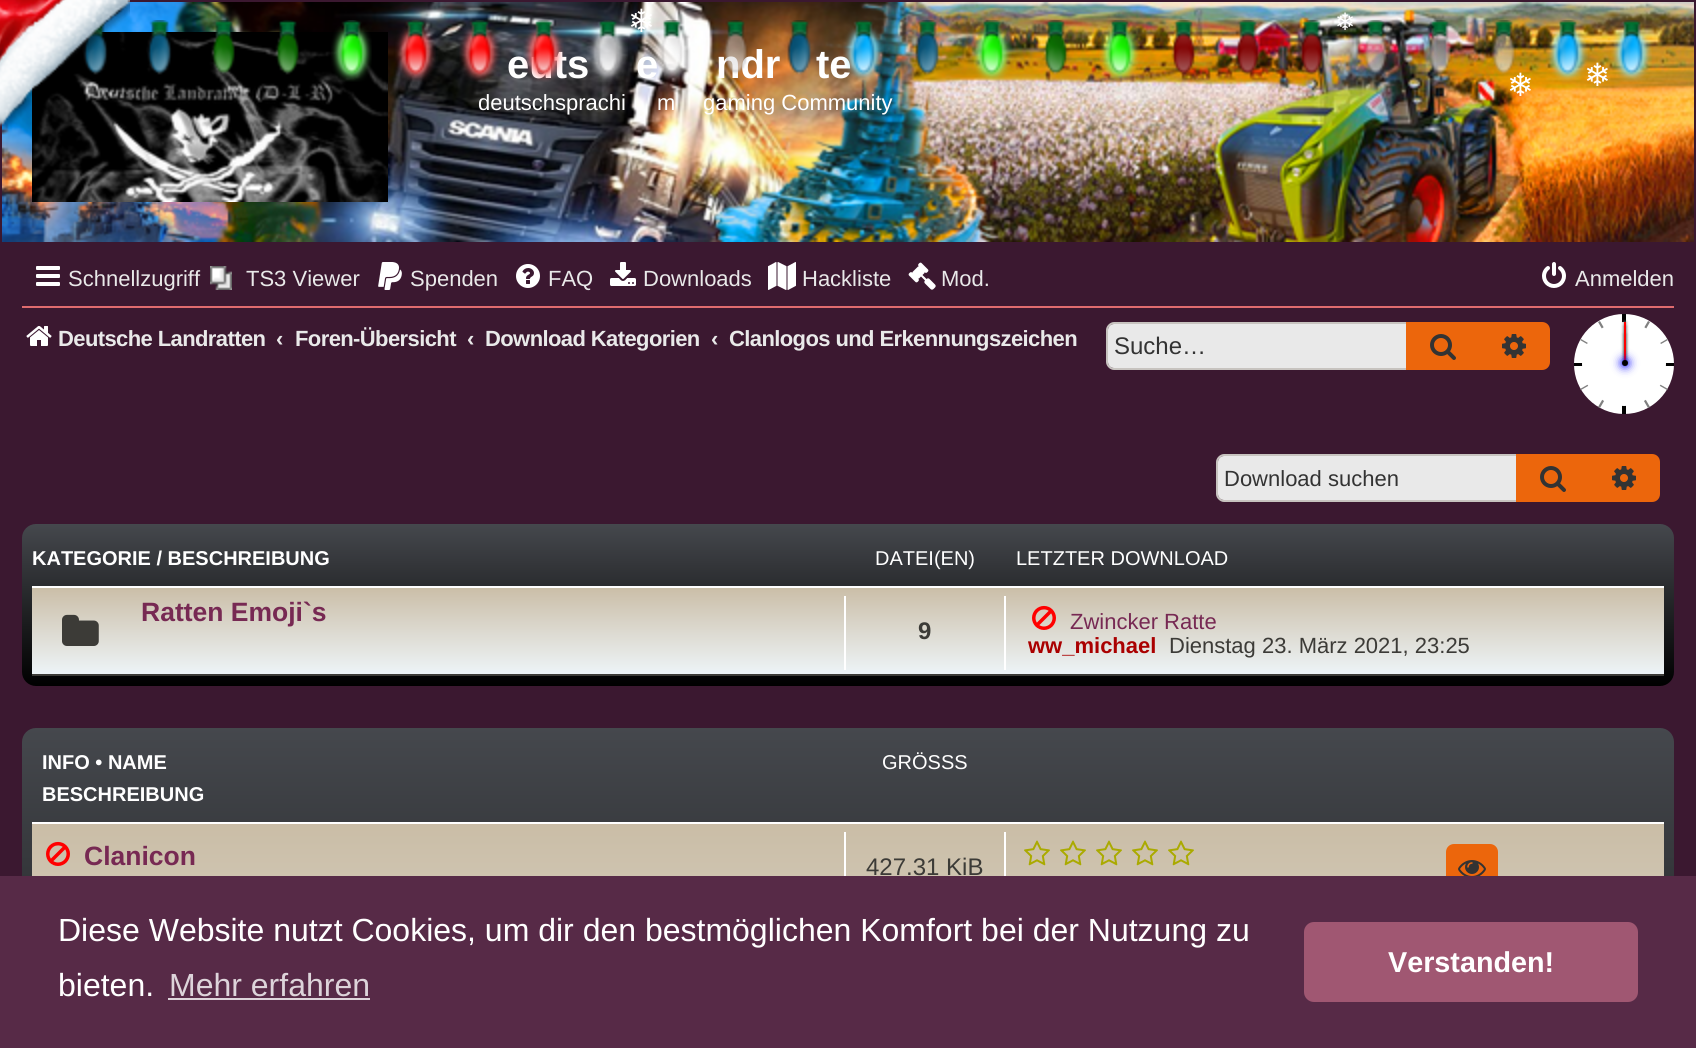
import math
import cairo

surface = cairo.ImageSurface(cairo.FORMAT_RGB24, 1696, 1048)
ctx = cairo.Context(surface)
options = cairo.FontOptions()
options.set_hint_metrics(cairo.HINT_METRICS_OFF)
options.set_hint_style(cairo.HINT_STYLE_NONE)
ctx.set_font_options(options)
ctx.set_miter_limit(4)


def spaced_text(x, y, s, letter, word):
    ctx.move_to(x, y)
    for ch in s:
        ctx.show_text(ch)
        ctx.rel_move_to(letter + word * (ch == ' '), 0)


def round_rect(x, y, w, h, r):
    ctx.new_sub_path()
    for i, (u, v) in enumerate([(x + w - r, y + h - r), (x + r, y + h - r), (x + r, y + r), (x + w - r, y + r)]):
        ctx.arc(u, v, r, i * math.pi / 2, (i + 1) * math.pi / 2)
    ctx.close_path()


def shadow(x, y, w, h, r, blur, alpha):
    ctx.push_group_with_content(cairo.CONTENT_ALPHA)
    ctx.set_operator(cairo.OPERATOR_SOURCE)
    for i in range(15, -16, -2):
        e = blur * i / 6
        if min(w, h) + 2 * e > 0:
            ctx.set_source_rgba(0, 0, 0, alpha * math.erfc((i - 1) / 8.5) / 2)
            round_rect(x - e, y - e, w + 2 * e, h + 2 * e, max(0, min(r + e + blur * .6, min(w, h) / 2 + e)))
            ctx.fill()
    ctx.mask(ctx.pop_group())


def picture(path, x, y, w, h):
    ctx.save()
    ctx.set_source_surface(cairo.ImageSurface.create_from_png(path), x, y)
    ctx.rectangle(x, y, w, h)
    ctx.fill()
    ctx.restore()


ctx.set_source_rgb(0.231, 0.094, 0.188)
ctx.paint()
picture("img27.png", 2, 2, 1692, 240)
ctx.select_font_face("Liberation Sans", cairo.FONT_SLANT_NORMAL, cairo.FONT_WEIGHT_BOLD)
ctx.set_font_size(40)
ctx.set_source_rgb(1, 1, 1)
ctx.move_to(636, 78)
ctx.show_text("e")
picture("img10.png", 651, 20, 38, 62)
ctx.select_font_face("DejaVu Sans")
ctx.set_font_size(32)
ctx.move_to(628, 32)
ctx.show_text("❄")
ctx.set_font_size(24)
ctx.move_to(1335, 30)
ctx.show_text("❄")
picture("img29.png", 32, 32, 356, 170)
picture("img1.png", 82, 21, 26, 54)
picture("img2.png", 146, 20, 26, 55)
picture("img3.png", 211, 20, 24, 55)
picture("img4.png", 275, 20, 24, 55)
picture("img5.png", 331, 20, 41, 62)
picture("img6.png", 395, 20, 41, 62)
picture("img7.png", 459, 20, 41, 62)
ctx.select_font_face("Liberation Sans", cairo.FONT_SLANT_NORMAL, cairo.FONT_WEIGHT_BOLD)
ctx.set_font_size(40)
ctx.move_to(507, 78)
ctx.show_text("euts")
picture("img8.png", 523, 20, 41, 62)
picture("img9.png", 587, 20, 41, 62)
ctx.move_to(716, 78)
ctx.show_text("ndr")
picture("img11.png", 723, 20, 25, 54)
picture("img12.png", 787, 20, 25, 55)
ctx.move_to(816, 78)
ctx.show_text("te")
picture("img13.png", 843, 20, 41, 62)
picture("img14.png", 915, 20, 25, 55)
picture("img15.png", 971, 20, 41, 61)
picture("img16.png", 1043, 20, 26, 55)
picture("img17.png", 1099, 20, 41, 61)
picture("img18.png", 1171, 20, 25, 55)
picture("img19.png", 1235, 20, 25, 55)
picture("img20.png", 1299, 20, 25, 55)
picture("img21.png", 1363, 20, 25, 55)
picture("img22.png", 1427, 20, 25, 55)
picture("img23.png", 1491, 20, 25, 55)
picture("img24.png", 1547, 20, 41, 62)
picture("img25.png", 1611, 20, 41, 62)
picture("img26.png", 39, 73, 9, 8)
picture("img28.png", 0, 0, 130, 129)
ctx.select_font_face("Liberation Sans")
ctx.set_font_size(22)
ctx.move_to(478, 110)
ctx.show_text("deutschsprachi")
ctx.move_to(657, 110)
ctx.show_text("m")
ctx.move_to(703, 110)
ctx.show_text("gaming Community")
picture("img30.png", 36, 266, 24, 20)
ctx.set_source_rgb(0.914, 0.914, 0.914)
ctx.move_to(68, 286)
ctx.show_text("Schnellzugriff")
picture("img31.png", 210, 266, 22, 24)
ctx.move_to(246, 286)
ctx.show_text("TS3 Viewer")
picture("img32.png", 378, 262, 24, 28)
ctx.move_to(410, 286)
ctx.show_text("Spenden")
picture("img33.png", 516, 264, 24, 24)
ctx.move_to(548, 286)
ctx.show_text("FAQ")
picture("img34.png", 610, 262, 26, 24)
ctx.move_to(643, 286)
ctx.show_text("Downloads")
picture("img35.png", 768, 262, 28, 28)
ctx.move_to(802, 286)
ctx.show_text("Hackliste")
picture("img36.png", 908, 262, 28, 28)
ctx.move_to(941, 286)
ctx.show_text("Mod.")
picture("img37.png", 1542, 262, 24, 26)
ctx.move_to(1575, 286)
ctx.show_text("Anmelden")
ctx.set_source_rgb(0.875, 0.42, 0.431)
ctx.rectangle(22, 306, 1652, 2)
ctx.fill()
picture("img38.png", 26, 326, 26, 20)
ctx.select_font_face("Liberation Sans", cairo.FONT_SLANT_NORMAL, cairo.FONT_WEIGHT_BOLD)
ctx.set_source_rgb(0.914, 0.914, 0.914)
spaced_text(58, 346, "Deutsche Landratten", -0.6, 0)
ctx.move_to(276, 346)
ctx.show_text("‹")
spaced_text(295, 346, "Foren-Übersicht", -0.6, 0)
ctx.move_to(467, 346)
ctx.show_text("‹")
spaced_text(485, 346, "Download Kategorien", -0.6, 0)
ctx.move_to(711, 346)
ctx.show_text("‹")
spaced_text(729, 346, "Clanlogos und Erkennungszeichen", -0.6, 0)
ctx.new_path()
ctx.move_to(1114, 324)
ctx.line_to(1406, 324)
ctx.line_to(1406, 368)
ctx.line_to(1114, 368)
ctx.curve_to(1110.5, 368, 1108, 365.5, 1108, 362)
ctx.line_to(1108, 330)
ctx.curve_to(1108, 326.5, 1110.5, 324, 1114, 324)
ctx.close_path()
ctx.fill()
ctx.set_source_rgb(0.78, 0.765, 0.749)
ctx.set_fill_rule(cairo.FILL_RULE_EVEN_ODD)
ctx.new_path()
ctx.move_to(1114, 322)
ctx.line_to(1406, 322)
ctx.line_to(1406, 370)
ctx.line_to(1114, 370)
ctx.curve_to(1110, 370, 1106, 366, 1106, 362)
ctx.line_to(1106, 330)
ctx.curve_to(1106, 326, 1110, 322, 1114, 322)
ctx.close_path()
ctx.move_to(1114, 324)
ctx.line_to(1406, 324)
ctx.line_to(1406, 368)
ctx.line_to(1114, 368)
ctx.curve_to(1111, 368, 1108, 365, 1108, 362)
ctx.line_to(1108, 330)
ctx.curve_to(1108, 327, 1111, 324, 1114, 324)
ctx.close_path()
ctx.fill()
ctx.select_font_face("Liberation Sans")
ctx.set_font_size(24)
ctx.set_source_rgb(0.2, 0.2, 0.2)
ctx.move_to(1114, 354)
ctx.show_text("Suche…")
ctx.set_source_rgb(0.922, 0.4, 0.047)
ctx.rectangle(1406, 322, 72, 48)
ctx.fill()
picture("img39.png", 1430, 334, 26, 26)
ctx.new_path()
ctx.move_to(1479, 323)
ctx.line_to(1542, 323)
ctx.curve_to(1546, 323, 1549, 326, 1549, 330)
ctx.line_to(1549, 362)
ctx.curve_to(1549, 366, 1546, 369, 1542, 369)
ctx.line_to(1479, 369)
ctx.close_path()
ctx.fill_preserve()
ctx.stroke()
picture("img40.png", 1502, 334, 24, 24)
ctx.set_source_rgb(1, 1, 1)
ctx.arc(1624, 364, 50, 0, 2 * math.pi)
ctx.fill()
ctx.set_source_rgb(0, 0, 0)
ctx.rectangle(1622, 314, 4, 100)
ctx.fill()
ctx.set_source_rgb(0.502, 0.502, 0.502)
ctx.set_fill_rule(cairo.FILL_RULE_WINDING)
ctx.new_path()
ctx.move_to(1648, 321)
ctx.line_to(1650, 322)
ctx.line_to(1600, 408)
ctx.line_to(1598, 407)
ctx.close_path()
ctx.fill()
ctx.new_path()
ctx.move_to(1667, 339)
ctx.line_to(1668, 340)
ctx.line_to(1581, 390)
ctx.line_to(1580, 389)
ctx.close_path()
ctx.fill()
ctx.new_path()
ctx.move_to(1668, 389)
ctx.line_to(1667, 390)
ctx.line_to(1580, 340)
ctx.line_to(1581, 339)
ctx.close_path()
ctx.fill()
ctx.new_path()
ctx.move_to(1650, 407)
ctx.line_to(1648, 408)
ctx.line_to(1598, 322)
ctx.line_to(1600, 321)
ctx.close_path()
ctx.fill()
ctx.set_source_rgb(0, 0, 0)
ctx.rectangle(1574, 363, 100, 3)
ctx.fill()
ctx.set_source_rgb(1, 1, 1)
ctx.arc(1624, 364, 42, 0, 2 * math.pi)
ctx.fill()
ctx.set_source_rgb(0.502, 0.502, 0.502)
shadow(1624, 322, 2, 42, 0, 1.5, 1)
shadow(1624, 326, 2, 38, 0, 1.5, 1)
shadow(1624, 334, 2, 26, 0, 1.5, 1)
ctx.set_source_rgb(1, 0, 0)
ctx.rectangle(1624, 322, 2, 42)
ctx.fill()
ctx.set_source_rgb(0, 0, 1)
shadow(1622, 360, 6, 6, 3, 5, 1)
ctx.set_source_rgb(0, 0, 0)
ctx.arc(1625, 363, 3, 0, 2 * math.pi)
ctx.fill()
ctx.set_source_rgb(0.914, 0.914, 0.914)
ctx.new_path()
ctx.move_to(1224, 456)
ctx.line_to(1516, 456)
ctx.line_to(1516, 500)
ctx.line_to(1224, 500)
ctx.curve_to(1220.5, 500, 1218, 497.5, 1218, 494)
ctx.line_to(1218, 462)
ctx.curve_to(1218, 458.5, 1220.5, 456, 1224, 456)
ctx.close_path()
ctx.fill()
ctx.set_source_rgb(0.78, 0.765, 0.749)
ctx.set_fill_rule(cairo.FILL_RULE_EVEN_ODD)
ctx.new_path()
ctx.move_to(1224, 454)
ctx.line_to(1516, 454)
ctx.line_to(1516, 502)
ctx.line_to(1224, 502)
ctx.curve_to(1220, 502, 1216, 498, 1216, 494)
ctx.line_to(1216, 462)
ctx.curve_to(1216, 458, 1220, 454, 1224, 454)
ctx.close_path()
ctx.move_to(1224, 456)
ctx.line_to(1516, 456)
ctx.line_to(1516, 500)
ctx.line_to(1224, 500)
ctx.curve_to(1221, 500, 1218, 497, 1218, 494)
ctx.line_to(1218, 462)
ctx.curve_to(1218, 459, 1221, 456, 1224, 456)
ctx.close_path()
ctx.fill()
ctx.set_font_size(22)
ctx.set_source_rgb(0.2, 0.2, 0.2)
ctx.move_to(1224, 486)
ctx.show_text("Download suchen")
ctx.set_source_rgb(0.922, 0.4, 0.047)
ctx.rectangle(1516, 454, 72, 48)
ctx.fill()
picture("img39.png", 1540, 466, 26, 26)
ctx.new_path()
ctx.move_to(1589, 455)
ctx.line_to(1652, 455)
ctx.curve_to(1656, 455, 1659, 458, 1659, 462)
ctx.line_to(1659, 494)
ctx.curve_to(1659, 498, 1656, 501, 1652, 501)
ctx.line_to(1589, 501)
ctx.close_path()
ctx.fill_preserve()
ctx.stroke()
picture("img40.png", 1612, 466, 24, 24)
gradient = cairo.LinearGradient(848, 524, 848, 686)
gradient.add_color_stop_rgba(0, 0.271, 0.282, 0.302, 1)
gradient.add_color_stop_rgba(1, 0, 0, 0, 1)
ctx.set_source(gradient)
round_rect(22, 524, 1652, 162, 14)
ctx.fill()
ctx.select_font_face("Liberation Sans", cairo.FONT_SLANT_NORMAL, cairo.FONT_WEIGHT_BOLD)
ctx.set_font_size(20)
ctx.set_source_rgb(1, 1, 1)
ctx.move_to(32, 565)
ctx.show_text("KATEGORIE / BESCHREIBUNG")
ctx.select_font_face("Liberation Sans")
ctx.move_to(875, 565)
ctx.show_text("DATEI(EN)")
ctx.move_to(1016, 565)
ctx.show_text("LETZTER DOWNLOAD")
gradient = cairo.LinearGradient(848, 586, 848, 676)
gradient.add_color_stop_rgba(0, 0.792, 0.741, 0.651, 1)
gradient.add_color_stop_rgba(1, 0.933, 0.961, 0.976, 1)
ctx.set_source(gradient)
ctx.rectangle(32, 588, 1632, 86)
ctx.fill()
ctx.set_source_rgb(1, 1, 1)
ctx.rectangle(32, 586, 1632, 2)
ctx.fill()
ctx.set_source_rgb(0.235, 0.231, 0.216)
ctx.rectangle(32, 674, 1632, 2)
ctx.fill()
picture("img41.png", 62, 614, 37, 32)
ctx.select_font_face("Liberation Sans", cairo.FONT_SLANT_NORMAL, cairo.FONT_WEIGHT_BOLD)
ctx.set_font_size(26.5)
ctx.set_source_rgb(0.467, 0.161, 0.325)
ctx.move_to(141, 621)
ctx.show_text("Ratten Emoji`s")
ctx.set_source_rgb(1, 1, 1)
ctx.rectangle(844, 596, 2, 74)
ctx.fill()
ctx.set_font_size(24)
ctx.set_source_rgb(0.235, 0.231, 0.216)
ctx.move_to(918, 639)
ctx.show_text("9")
ctx.set_source_rgb(1, 1, 1)
ctx.rectangle(1004, 596, 2, 74)
ctx.fill()
picture("img42.png", 1032, 605, 24, 25)
ctx.select_font_face("Liberation Sans")
ctx.set_font_size(22)
ctx.set_source_rgb(0.467, 0.161, 0.325)
ctx.move_to(1070, 629)
ctx.show_text("Zwincker Ratte")
ctx.select_font_face("Liberation Sans", cairo.FONT_SLANT_NORMAL, cairo.FONT_WEIGHT_BOLD)
ctx.set_source_rgb(0.667, 0, 0)
ctx.move_to(1028, 653)
ctx.show_text("ww_michael")
ctx.select_font_face("Liberation Sans")
ctx.set_source_rgb(0.235, 0.231, 0.216)
ctx.move_to(1169, 653)
ctx.show_text("Dienstag 23. März 2021, 23:25")
gradient = cairo.LinearGradient(848, 728, 848, 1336)
gradient.add_color_stop_rgba(0, 0.271, 0.282, 0.302, 1)
gradient.add_color_stop_rgba(1, 0, 0, 0, 1)
ctx.set_source(gradient)
round_rect(22, 728, 1652, 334, 14)
ctx.fill()
ctx.select_font_face("Liberation Sans", cairo.FONT_SLANT_NORMAL, cairo.FONT_WEIGHT_BOLD)
ctx.set_font_size(20)
ctx.set_source_rgb(1, 1, 1)
ctx.move_to(42, 769)
ctx.show_text("INFO • NAME")
ctx.move_to(42, 801)
ctx.show_text("BESCHREIBUNG")
ctx.select_font_face("Liberation Sans")
ctx.move_to(882, 769)
ctx.show_text("GRÖSSS")
gradient = cairo.LinearGradient(848, 822, 848, 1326)
gradient.add_color_stop_rgba(0, 0.792, 0.741, 0.651, 1)
gradient.add_color_stop_rgba(1, 0.933, 0.961, 0.976, 1)
ctx.set_source(gradient)
ctx.rectangle(32, 824, 1632, 52)
ctx.fill()
ctx.set_source_rgb(1, 1, 1)
ctx.rectangle(32, 822, 1632, 2)
ctx.fill()
picture("img43.png", 46, 841, 24, 25)
ctx.select_font_face("Liberation Sans", cairo.FONT_SLANT_NORMAL, cairo.FONT_WEIGHT_BOLD)
ctx.set_font_size(26.5)
ctx.set_source_rgb(0.467, 0.161, 0.325)
ctx.move_to(84, 865)
ctx.show_text("Clanicon")
ctx.set_source_rgb(1, 1, 1)
ctx.rectangle(844, 832, 2, 44)
ctx.fill()
ctx.select_font_face("Liberation Sans")
ctx.set_font_size(24)
ctx.set_source_rgb(0.235, 0.231, 0.216)
ctx.move_to(866, 875)
ctx.show_text("427.31 KiB")
ctx.set_source_rgb(1, 1, 1)
ctx.rectangle(1004, 832, 2, 44)
ctx.fill()
picture("img44.png", 1024, 840, 26, 26)
picture("img44.png", 1060, 840, 26, 26)
picture("img44.png", 1096, 840, 26, 26)
picture("img44.png", 1132, 840, 26, 26)
picture("img44.png", 1168, 840, 26, 26)
ctx.set_source_rgb(0.922, 0.4, 0.047)
round_rect(1447, 845, 50, 48, 7)
ctx.fill_preserve()
ctx.stroke()
picture("img45.png", 1458, 860, 28, 16)
ctx.select_font_face("DejaVu Sans")
ctx.set_font_size(32)
ctx.set_source_rgb(1, 1, 1)
ctx.move_to(1507, 96)
ctx.show_text("❄")
ctx.move_to(1584, 86)
ctx.show_text("❄")
ctx.set_source_rgb(0.341, 0.165, 0.278)
ctx.rectangle(0, 876, 1696, 172)
ctx.fill()
ctx.select_font_face("Liberation Sans")
ctx.set_source_rgb(1, 1, 1)
ctx.move_to(58, 941)
ctx.show_text("Diese Website nutzt Cookies, um dir den bestmöglichen Komfort bei der Nutzung zu")
ctx.move_to(58, 996)
ctx.show_text("bieten.")
ctx.set_source_rgb(0.867, 0.831, 0.855)
ctx.move_to(169, 996)
ctx.show_text("Mehr erfahren")
ctx.rectangle(168, 998, 202, 2)
ctx.fill()
ctx.set_source_rgb(0.627, 0.341, 0.447)
round_rect(1304, 922, 334, 80, 10)
ctx.fill()
ctx.select_font_face("Liberation Sans", cairo.FONT_SLANT_NORMAL, cairo.FONT_WEIGHT_BOLD)
ctx.set_font_size(28.75)
ctx.set_source_rgb(1, 1, 1)
ctx.move_to(1388, 972)
ctx.show_text("Verstanden!")
surface.write_to_png("page.png")
